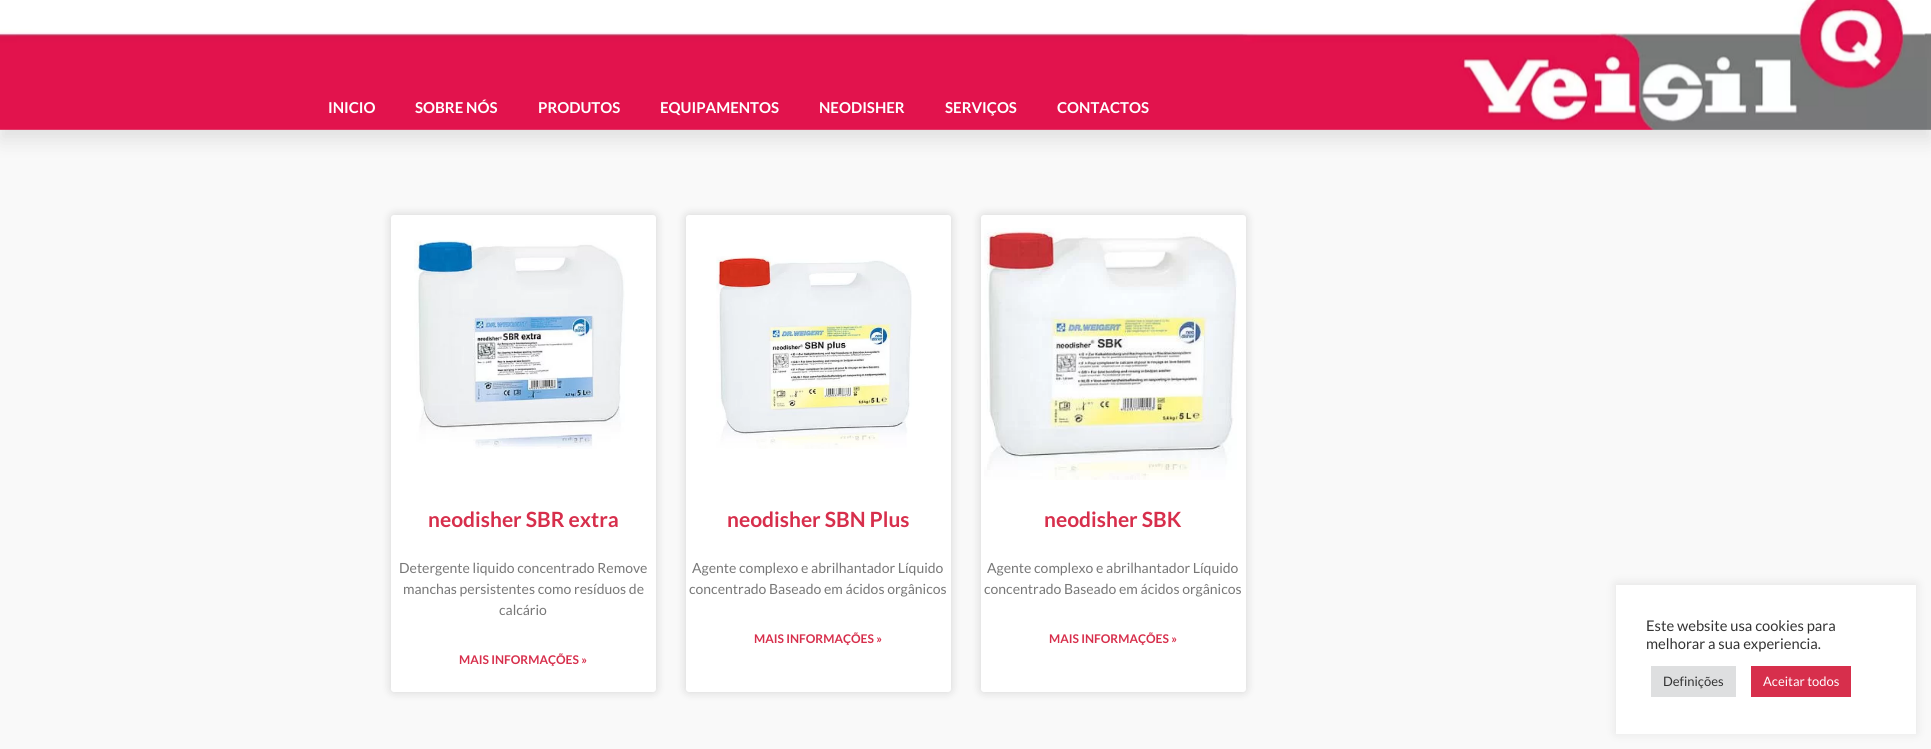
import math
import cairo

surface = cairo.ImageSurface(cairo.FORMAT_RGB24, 1931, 749)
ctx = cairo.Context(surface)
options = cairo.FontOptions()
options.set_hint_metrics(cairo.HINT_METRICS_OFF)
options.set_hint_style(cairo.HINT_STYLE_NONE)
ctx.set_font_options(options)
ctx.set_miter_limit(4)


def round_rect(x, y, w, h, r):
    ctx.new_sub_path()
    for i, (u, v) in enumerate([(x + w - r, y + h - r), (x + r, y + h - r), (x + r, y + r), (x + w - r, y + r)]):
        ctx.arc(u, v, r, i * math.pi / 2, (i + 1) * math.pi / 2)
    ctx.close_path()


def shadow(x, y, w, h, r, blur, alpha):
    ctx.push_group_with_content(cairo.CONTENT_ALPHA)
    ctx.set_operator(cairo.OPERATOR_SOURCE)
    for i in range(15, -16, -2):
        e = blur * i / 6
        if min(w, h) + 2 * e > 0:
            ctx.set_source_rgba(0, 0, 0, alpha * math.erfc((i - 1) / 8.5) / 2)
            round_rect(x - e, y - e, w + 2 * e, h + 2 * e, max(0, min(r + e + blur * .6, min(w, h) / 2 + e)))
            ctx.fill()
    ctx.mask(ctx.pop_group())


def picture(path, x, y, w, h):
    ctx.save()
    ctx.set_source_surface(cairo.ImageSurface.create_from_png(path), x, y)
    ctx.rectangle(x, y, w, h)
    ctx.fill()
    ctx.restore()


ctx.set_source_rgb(0.976, 0.976, 0.976)
ctx.paint()
ctx.set_source_rgb(0, 0, 0)
shadow(0, 10, 1931, 130, 0, 10, 0.1)
picture("img1.png", 0, 0, 1931, 130)
ctx.select_font_face("Lato", cairo.FONT_SLANT_NORMAL, cairo.FONT_WEIGHT_BOLD)
ctx.set_font_size(15)
ctx.set_source_rgb(1, 1, 1)
ctx.move_to(328, 113)
ctx.show_text("INICIO")
ctx.move_to(415, 113)
ctx.show_text("SOBRE NÓS")
ctx.move_to(538, 113)
ctx.show_text("PRODUTOS")
ctx.move_to(660, 113)
ctx.show_text("EQUIPAMENTOS")
ctx.move_to(819, 113)
ctx.show_text("NEODISHER")
ctx.move_to(945, 113)
ctx.show_text("SERVIÇOS")
ctx.move_to(1057, 113)
ctx.show_text("CONTACTOS")
ctx.set_source_rgb(0, 0, 0)
shadow(391, 215, 265, 477, 3, 5, 0.15)
ctx.set_source_rgb(1, 1, 1)
round_rect(391, 215, 265, 477, 3)
ctx.fill()
picture("img2.png", 414, 240, 211, 209)
ctx.set_font_size(21)
ctx.set_source_rgb(0.843, 0.184, 0.298)
ctx.move_to(428, 527)
ctx.show_text("neodisher SBR extra")
ctx.select_font_face("Lato")
ctx.set_font_size(14)
ctx.set_source_rgb(0.467, 0.467, 0.467)
ctx.move_to(399, 573)
ctx.show_text("Detergente liquido concentrado Remove")
ctx.move_to(403, 594)
ctx.show_text("manchas persistentes como resíduos de")
ctx.move_to(499, 615)
ctx.show_text("calcário")
ctx.select_font_face("Lato", cairo.FONT_SLANT_NORMAL, cairo.FONT_WEIGHT_BOLD)
ctx.set_font_size(12)
ctx.set_source_rgb(0.843, 0.184, 0.298)
ctx.move_to(459, 664)
ctx.show_text("MAIS INFORMAÇÕES »")
ctx.set_source_rgb(0, 0, 0)
shadow(686, 215, 265, 477, 3, 5, 0.15)
ctx.set_source_rgb(1, 1, 1)
round_rect(686, 215, 265, 477, 3)
ctx.fill()
picture("img3.png", 716, 256, 196, 193)
ctx.set_font_size(21)
ctx.set_source_rgb(0.843, 0.184, 0.298)
ctx.move_to(727, 527)
ctx.show_text("neodisher SBN Plus")
ctx.select_font_face("Lato")
ctx.set_font_size(14)
ctx.set_source_rgb(0.467, 0.467, 0.467)
ctx.move_to(692, 573)
ctx.show_text("Agente complexo e abrilhantador Líquido")
ctx.move_to(689, 594)
ctx.show_text("concentrado Baseado em ácidos orgânicos")
ctx.select_font_face("Lato", cairo.FONT_SLANT_NORMAL, cairo.FONT_WEIGHT_BOLD)
ctx.set_font_size(12)
ctx.set_source_rgb(0.843, 0.184, 0.298)
ctx.move_to(754, 643)
ctx.show_text("MAIS INFORMAÇÕES »")
ctx.set_source_rgb(0, 0, 0)
shadow(981, 215, 265, 477, 3, 5, 0.15)
ctx.set_source_rgb(1, 1, 1)
round_rect(981, 215, 265, 477, 3)
ctx.fill()
picture("img4.png", 984, 228, 253, 252)
ctx.set_font_size(21)
ctx.set_source_rgb(0.843, 0.184, 0.298)
ctx.move_to(1044, 527)
ctx.show_text("neodisher SBK")
ctx.select_font_face("Lato")
ctx.set_font_size(14)
ctx.set_source_rgb(0.467, 0.467, 0.467)
ctx.move_to(987, 573)
ctx.show_text("Agente complexo e abrilhantador Líquido")
ctx.move_to(984, 594)
ctx.show_text("concentrado Baseado em ácidos orgânicos")
ctx.select_font_face("Lato", cairo.FONT_SLANT_NORMAL, cairo.FONT_WEIGHT_BOLD)
ctx.set_font_size(12)
ctx.set_source_rgb(0.843, 0.184, 0.298)
ctx.move_to(1049, 643)
ctx.show_text("MAIS INFORMAÇÕES »")
ctx.set_source_rgb(0.675, 0.671, 0.671)
shadow(1616, 584, 300, 149, 0, 5, 0.3)
ctx.set_source_rgb(1, 1, 1)
ctx.rectangle(1616, 585, 300, 149)
ctx.fill()
ctx.select_font_face("Lato")
ctx.set_font_size(14.7)
ctx.set_source_rgb(0.2, 0.2, 0.2)
ctx.move_to(1646, 631)
ctx.show_text("Este website usa cookies para")
ctx.move_to(1646, 649)
ctx.show_text("melhorar a sua experiencia.")
ctx.set_source_rgb(0.871, 0.875, 0.878)
ctx.rectangle(1651, 666, 85, 31)
ctx.fill()
ctx.set_font_size(13)
ctx.set_source_rgb(0.2, 0.2, 0.2)
ctx.move_to(1663, 686)
ctx.show_text("Definições")
ctx.set_source_rgb(0.843, 0.184, 0.298)
ctx.rectangle(1751, 666, 100, 31)
ctx.fill()
ctx.set_source_rgb(1, 1, 1)
ctx.move_to(1763, 686)
ctx.show_text("Aceitar todos")
surface.write_to_png("page.png")
